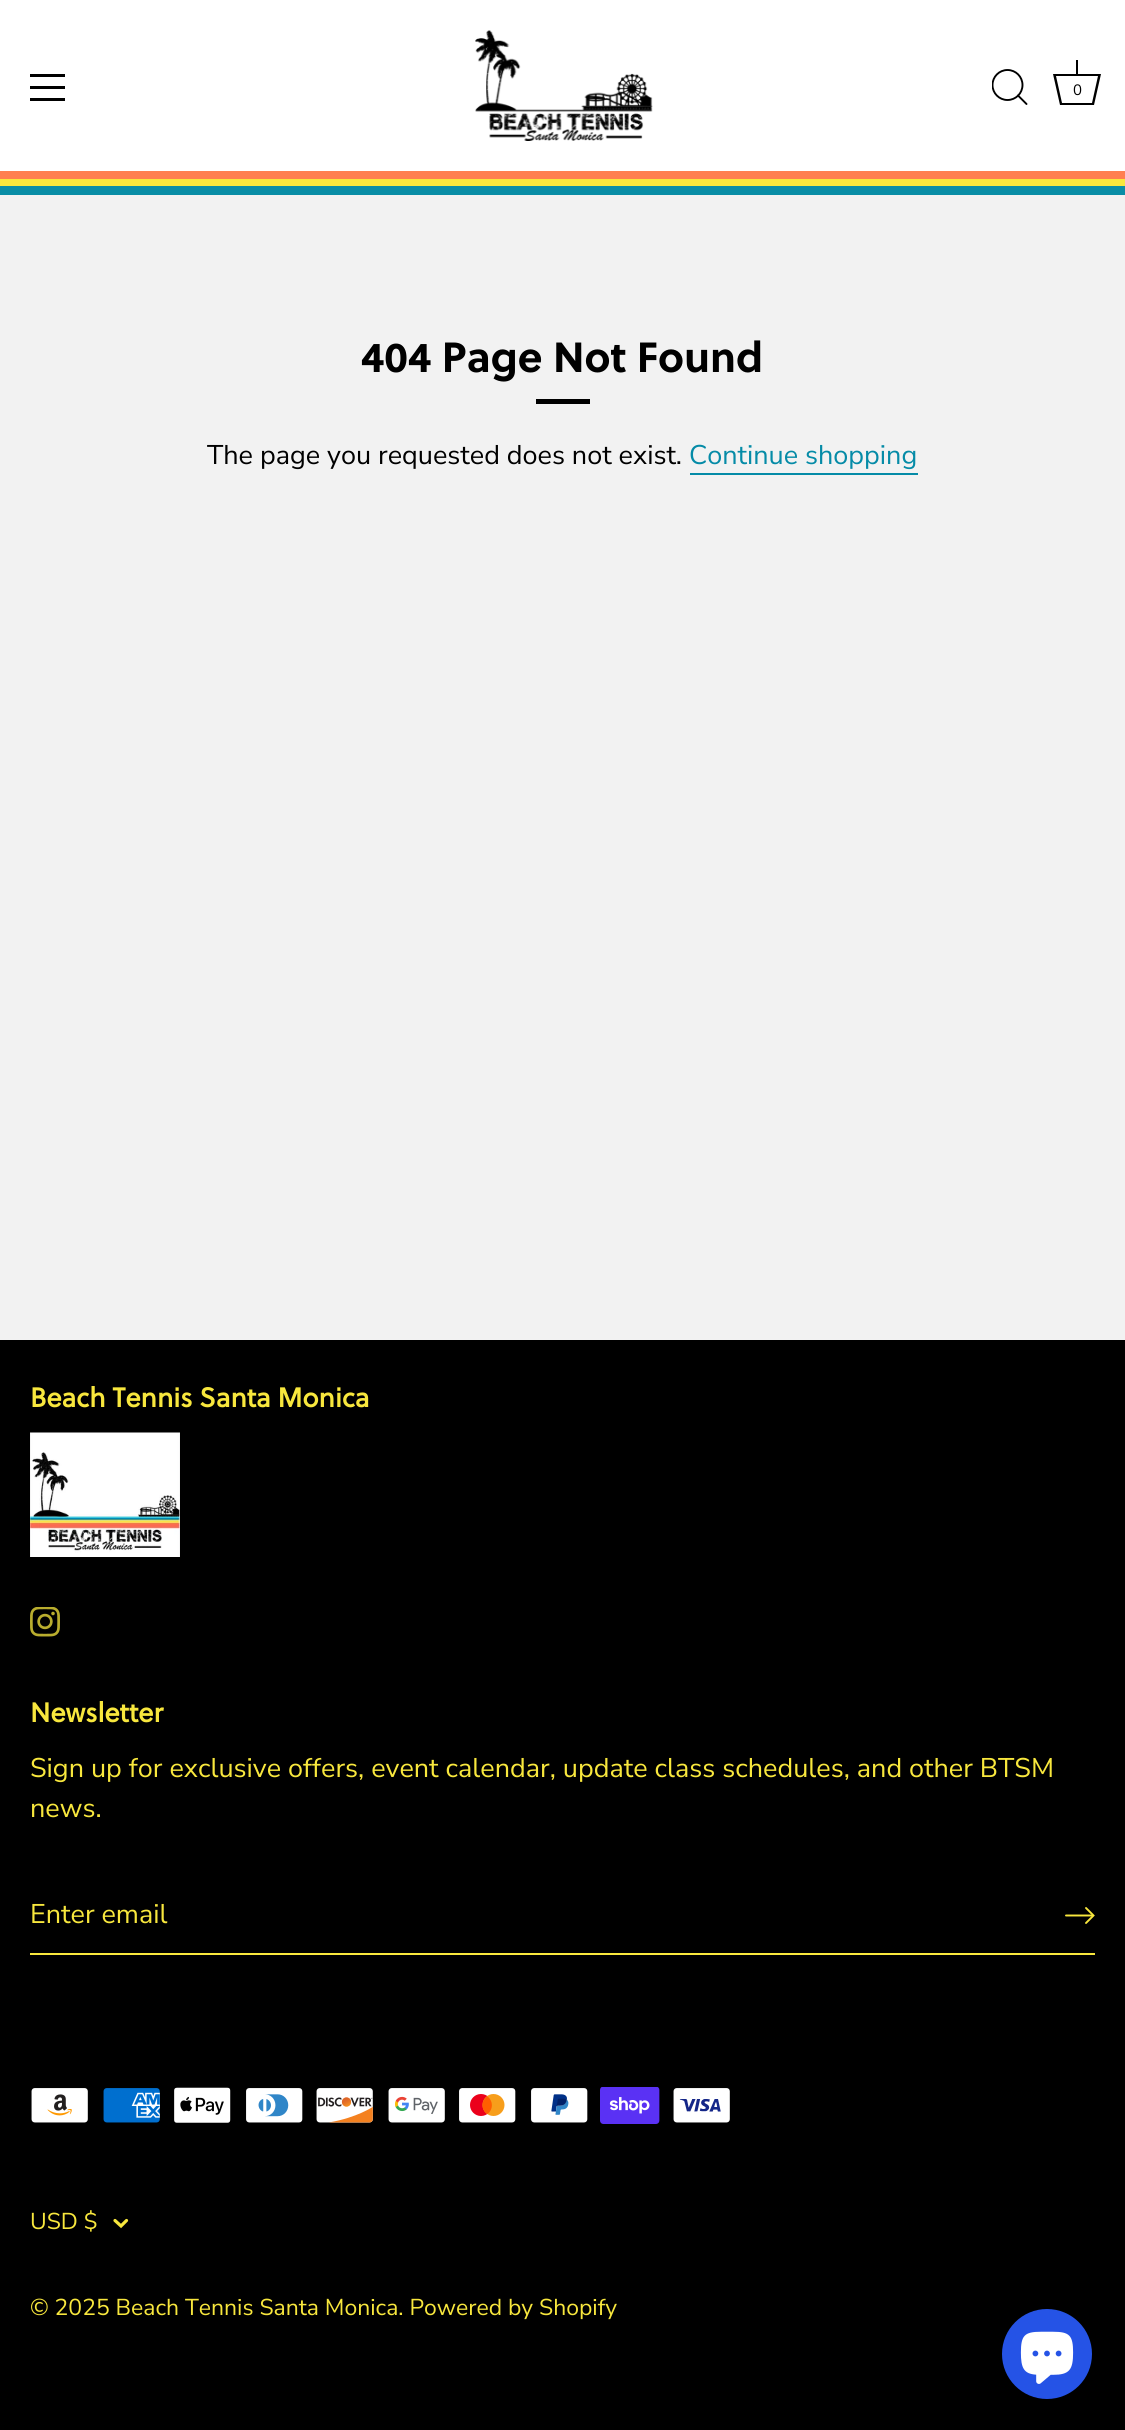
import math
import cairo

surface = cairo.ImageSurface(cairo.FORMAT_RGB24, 1125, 2430)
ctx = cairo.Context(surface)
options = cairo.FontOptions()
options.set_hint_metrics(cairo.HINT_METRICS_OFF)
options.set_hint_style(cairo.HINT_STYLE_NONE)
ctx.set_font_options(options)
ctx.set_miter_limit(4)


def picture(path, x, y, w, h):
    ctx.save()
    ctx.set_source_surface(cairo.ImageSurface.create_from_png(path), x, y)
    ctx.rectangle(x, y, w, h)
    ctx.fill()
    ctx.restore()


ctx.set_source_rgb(0.949, 0.949, 0.949)
ctx.paint()
ctx.set_source_rgb(1, 1, 1)
ctx.rectangle(0, 0, 1125, 171)
ctx.fill()
ctx.set_source_rgb(0.969, 0.906, 0.239)
ctx.rectangle(0, 179, 1125, 7)
ctx.fill()
ctx.rectangle(-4.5, -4.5, 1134, 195)
ctx.set_source_rgb(0.039, 0.553, 0.651)
ctx.set_line_width(9)
ctx.stroke()
ctx.set_source_rgb(1, 0.498, 0.314)
ctx.rectangle(0, 171, 1125, 8)
ctx.fill()
ctx.set_source_rgb(0, 0, 0)
ctx.rectangle(30, 74, 35, 3)
ctx.fill()
ctx.rectangle(30, 86, 35, 3)
ctx.fill()
ctx.rectangle(30, 98, 35, 3)
ctx.fill()
picture("img1.png", 475, 30, 178, 111)
ctx.save()
ctx.rectangle(992, 69, 36, 36)
ctx.clip()
ctx.arc(1007.5, 85, 15, 0, 2 * math.pi)
ctx.set_line_width(1.9)
ctx.stroke()
ctx.restore()
ctx.new_path()
ctx.move_to(1026.5, 104)
ctx.line_to(1018, 95.5)
ctx.set_line_width(1.9)
ctx.set_line_cap(cairo.LINE_CAP_ROUND)
ctx.set_line_join(cairo.LINE_JOIN_ROUND)
ctx.stroke()
ctx.rectangle(1076, 60, 2, 14)
ctx.fill()
ctx.new_path()
ctx.move_to(1098, 76)
ctx.line_to(1092, 103)
ctx.line_to(1062, 103)
ctx.line_to(1056, 76)
ctx.line_to(1098, 76)
ctx.move_to(1101, 74)
ctx.line_to(1053, 74)
ctx.line_to(1060, 105)
ctx.line_to(1094, 105)
ctx.close_path()
ctx.fill()
ctx.select_font_face("Nunito Sans")
ctx.set_font_size(15)
ctx.move_to(1073, 95)
ctx.show_text("0")
ctx.select_font_face("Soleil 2", cairo.FONT_SLANT_NORMAL, cairo.FONT_WEIGHT_BOLD)
ctx.set_font_size(42.1)
ctx.move_to(361, 372)
ctx.show_text("404 Page Not Found")
ctx.rectangle(536, 399, 54, 5)
ctx.fill()
ctx.select_font_face("Nunito Sans")
ctx.set_font_size(27)
ctx.move_to(207, 464)
ctx.show_text("The page you requested does not exist.")
ctx.set_source_rgb(0.02, 0.545, 0.655)
ctx.move_to(689, 464)
ctx.show_text("Continue shopping")
ctx.rectangle(690, 473, 228, 2)
ctx.fill()
ctx.set_source_rgb(0, 0, 0)
ctx.rectangle(0, 1340, 1125, 1090)
ctx.fill()
ctx.select_font_face("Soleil", cairo.FONT_SLANT_NORMAL, cairo.FONT_WEIGHT_BOLD)
ctx.set_source_rgb(0.969, 0.906, 0.239)
ctx.move_to(30, 1407)
ctx.show_text("Beach Tennis Santa Monica")
picture("img2.png", 30, 1432, 150, 125)
picture("img3.png", 30, 1607, 30, 30)
ctx.move_to(30, 1722)
ctx.show_text("Newsletter")
ctx.select_font_face("Nunito Sans")
ctx.move_to(30, 1777)
ctx.show_text("Sign up for exclusive offers, event calendar, update class schedules, and other BTSM")
ctx.move_to(30, 1817)
ctx.show_text("news.")
ctx.rectangle(30, 1953, 1065, 2)
ctx.fill()
ctx.move_to(30, 1923)
ctx.show_text("Enter email")
ctx.new_path()
ctx.move_to(1086, 1923)
ctx.line_to(1093.5, 1915.5)
ctx.line_to(1086, 1908)
ctx.set_line_join(cairo.LINE_JOIN_MITER)
ctx.stroke()
ctx.new_path()
ctx.move_to(1092.5, 1915.5)
ctx.line_to(1066, 1915.5)
ctx.set_line_join(cairo.LINE_JOIN_ROUND)
ctx.stroke()
picture("img4.png", 31, 2088, 57, 35)
picture("img5.png", 103, 2088, 57, 35)
picture("img6.png", 174, 2087, 57, 36)
picture("img7.png", 246, 2088, 57, 35)
picture("img8.png", 316, 2088, 57, 35)
picture("img9.png", 388, 2088, 57, 35)
picture("img10.png", 459, 2088, 57, 35)
picture("img11.png", 531, 2088, 57, 35)
picture("img12.png", 600, 2087, 60, 37)
picture("img13.png", 673, 2088, 57, 35)
ctx.set_font_size(22.95)
ctx.move_to(30, 2229)
ctx.show_text("USD $")
ctx.new_path()
ctx.move_to(115, 2220.5)
ctx.line_to(121, 2226)
ctx.line_to(126.5, 2220.5)
ctx.set_line_width(3.2)
ctx.set_line_join(cairo.LINE_JOIN_MITER)
ctx.stroke()
ctx.move_to(30, 2315)
ctx.show_text("© 2025 Beach Tennis Santa Monica. Powered by Shopify")
ctx.set_source_rgb(0.145, 0.325, 0.902)
ctx.new_path()
ctx.arc(1047, 2354, 45, 0, 2 * math.pi)
ctx.fill()
picture("img14.png", 1020, 2331, 54, 53)
surface.write_to_png("page.png")
